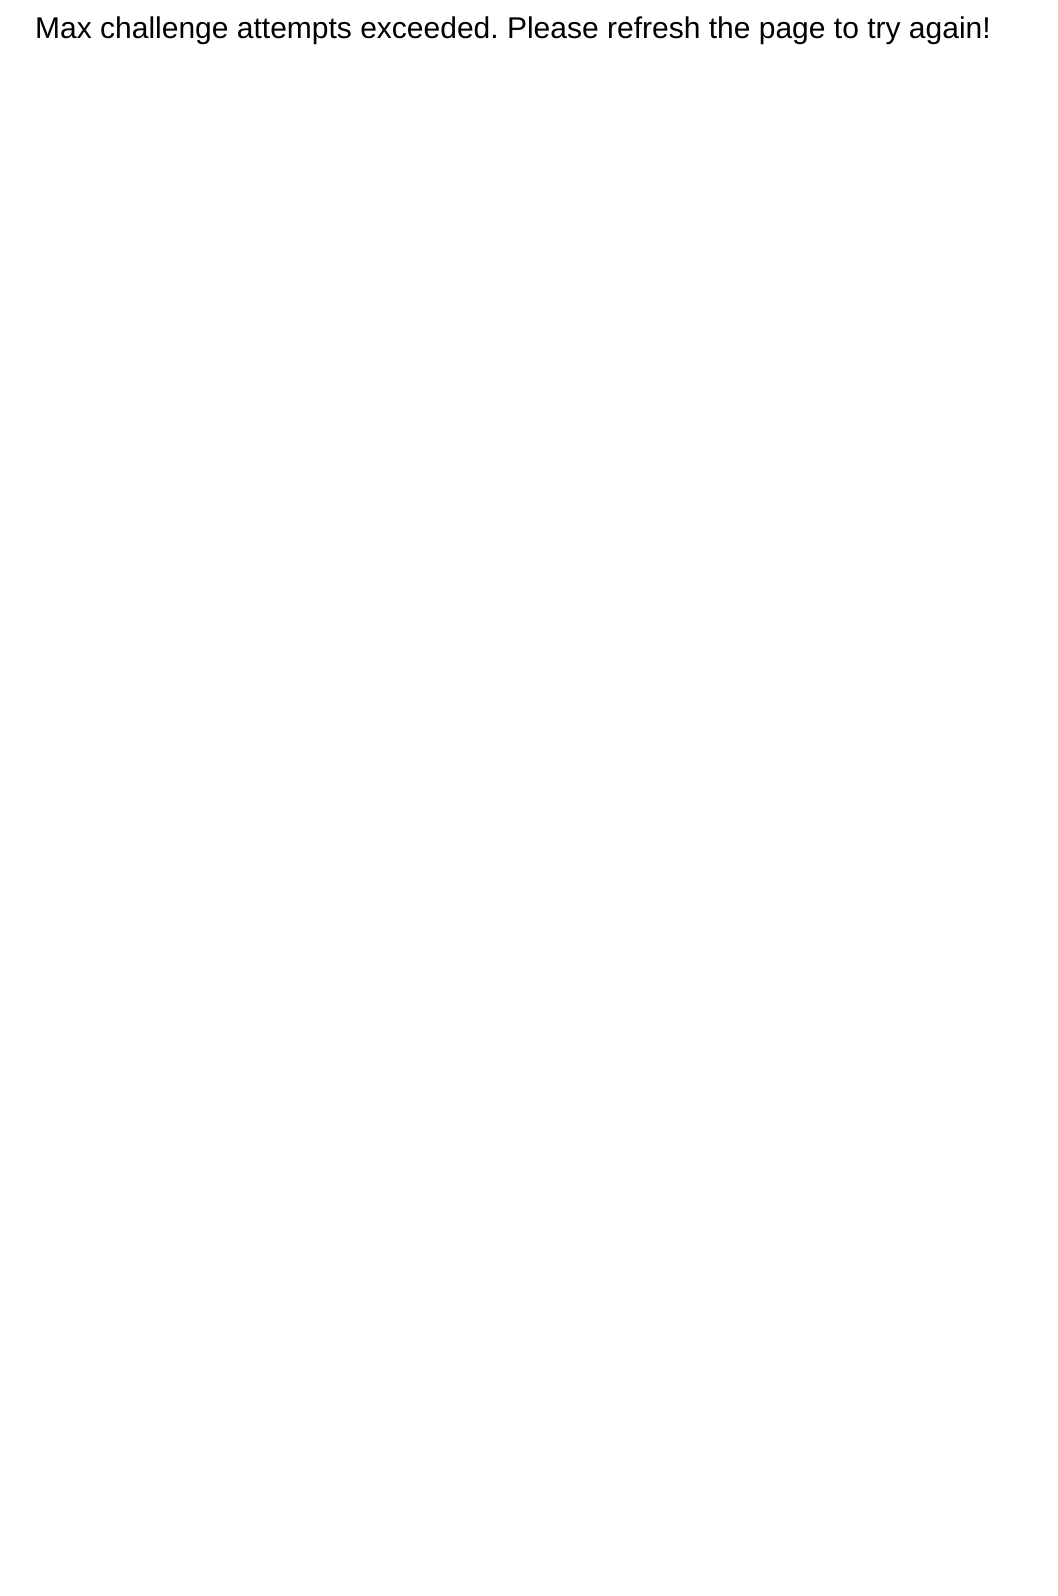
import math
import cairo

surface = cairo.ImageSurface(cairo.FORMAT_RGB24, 1058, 1596)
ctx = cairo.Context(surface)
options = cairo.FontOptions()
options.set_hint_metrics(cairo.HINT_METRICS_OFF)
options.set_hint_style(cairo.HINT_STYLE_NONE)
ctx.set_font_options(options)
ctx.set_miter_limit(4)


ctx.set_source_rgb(1, 1, 1)
ctx.paint()
ctx.select_font_face("Liberation Sans")
ctx.set_font_size(30)
ctx.set_source_rgb(0, 0, 0)
ctx.move_to(35, 38)
ctx.show_text("Max challenge attempts exceeded. Please refresh the page to try again!")
surface.write_to_png("page.png")
